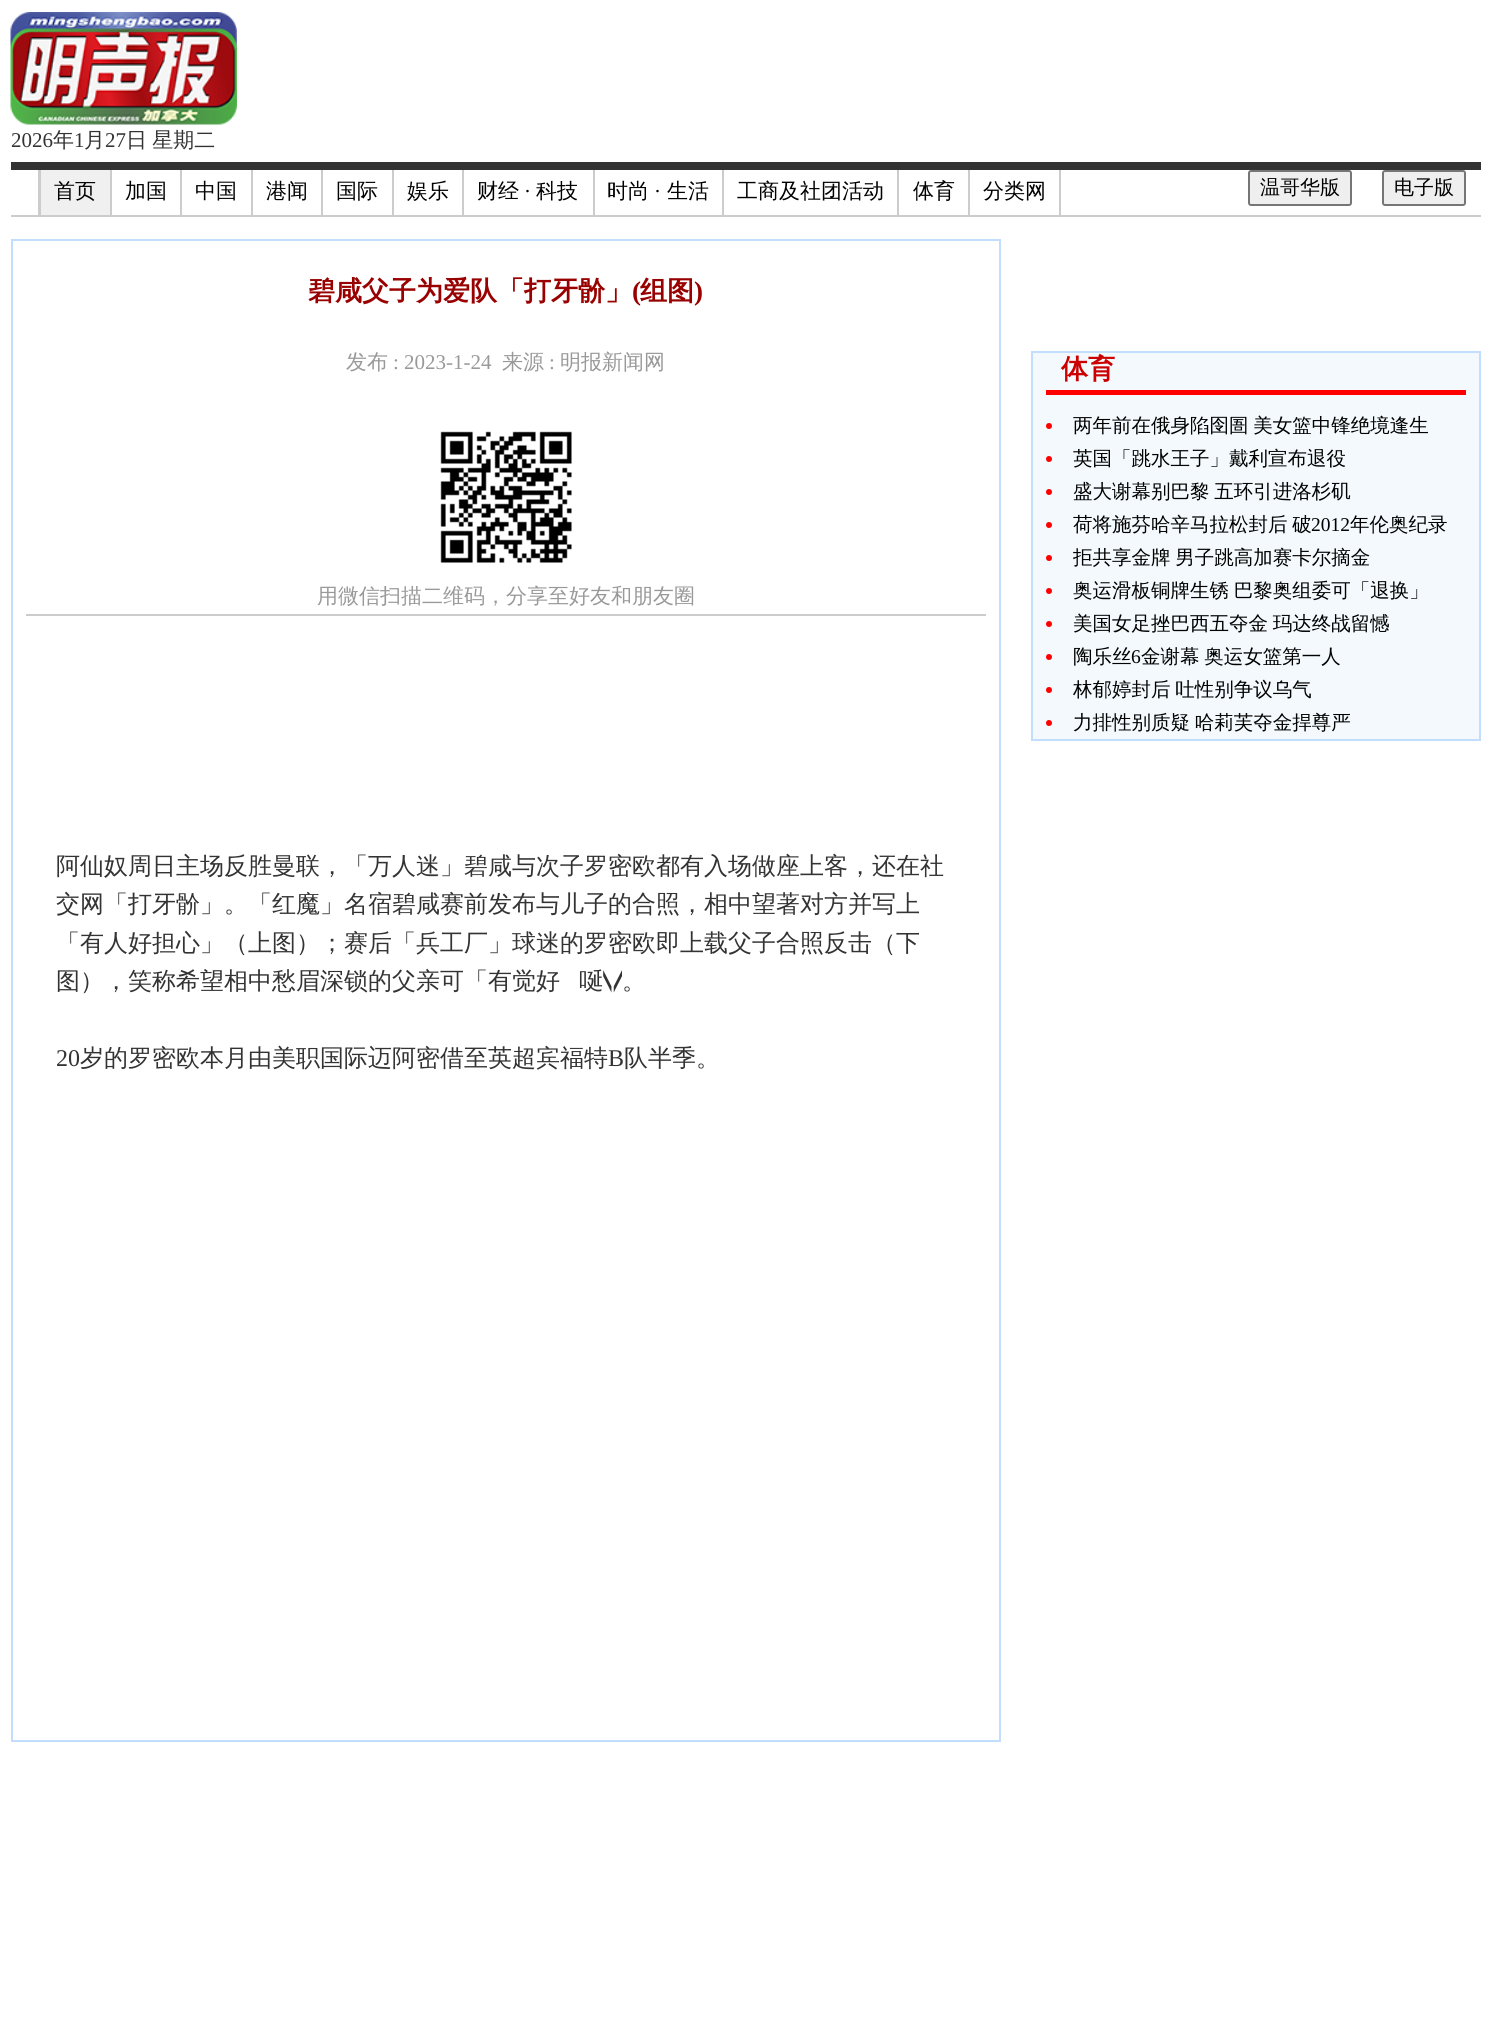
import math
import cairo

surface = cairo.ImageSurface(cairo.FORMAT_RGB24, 1490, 2020)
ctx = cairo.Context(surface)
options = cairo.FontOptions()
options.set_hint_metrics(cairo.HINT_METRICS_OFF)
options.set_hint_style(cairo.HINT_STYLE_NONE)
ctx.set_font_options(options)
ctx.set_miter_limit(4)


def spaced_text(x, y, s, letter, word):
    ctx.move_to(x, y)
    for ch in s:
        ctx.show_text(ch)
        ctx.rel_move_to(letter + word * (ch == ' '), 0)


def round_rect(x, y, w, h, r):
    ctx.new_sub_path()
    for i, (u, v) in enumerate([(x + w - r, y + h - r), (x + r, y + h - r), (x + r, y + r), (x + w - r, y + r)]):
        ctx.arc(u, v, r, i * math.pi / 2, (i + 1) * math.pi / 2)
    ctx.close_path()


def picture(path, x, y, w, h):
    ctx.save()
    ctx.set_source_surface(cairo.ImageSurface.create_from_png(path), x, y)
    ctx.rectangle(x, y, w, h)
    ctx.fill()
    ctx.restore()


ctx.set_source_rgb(1, 1, 1)
ctx.paint()
picture("img1.png", 10, 12, 227, 113)
ctx.select_font_face("Liberation Serif")
ctx.set_font_size(21)
ctx.set_source_rgb(0.2, 0.2, 0.2)
ctx.move_to(11, 147)
ctx.show_text("2026")
ctx.select_font_face("WenQuanYi Zen Hei Medium")
ctx.move_to(53, 147)
ctx.show_text("年")
ctx.select_font_face("Liberation Serif")
ctx.move_to(74, 147)
ctx.show_text("1")
ctx.select_font_face("WenQuanYi Zen Hei Medium")
ctx.move_to(84, 147)
ctx.show_text("月")
ctx.select_font_face("Liberation Serif")
ctx.move_to(105, 147)
ctx.show_text("27")
ctx.select_font_face("WenQuanYi Zen Hei Medium")
spaced_text(126, 147, "日 星期二", 0, -1)
ctx.rectangle(11, 162, 1470, 8)
ctx.fill()
ctx.set_source_rgb(0.8, 0.8, 0.8)
ctx.rectangle(11, 215, 1470, 2)
ctx.fill()
ctx.rectangle(38, 170, 3, 45)
ctx.fill()
ctx.set_source_rgb(0.941, 0.941, 0.941)
ctx.rectangle(41, 170, 69, 45)
ctx.fill()
ctx.set_source_rgb(0.8, 0.8, 0.8)
ctx.rectangle(110, 170, 2, 45)
ctx.fill()
ctx.set_source_rgb(0, 0, 0)
ctx.move_to(54, 198)
ctx.show_text("首页")
ctx.set_source_rgb(0.8, 0.8, 0.8)
ctx.rectangle(180, 170, 2, 45)
ctx.fill()
ctx.set_source_rgb(0, 0, 0)
ctx.move_to(125, 198)
ctx.show_text("加国")
ctx.set_source_rgb(0.8, 0.8, 0.8)
ctx.rectangle(251, 170, 2, 45)
ctx.fill()
ctx.set_source_rgb(0, 0, 0)
ctx.move_to(195, 198)
ctx.show_text("中国")
ctx.set_source_rgb(0.8, 0.8, 0.8)
ctx.rectangle(321, 170, 2, 45)
ctx.fill()
ctx.set_source_rgb(0, 0, 0)
ctx.move_to(266, 198)
ctx.show_text("港闻")
ctx.set_source_rgb(0.8, 0.8, 0.8)
ctx.rectangle(392, 170, 2, 45)
ctx.fill()
ctx.set_source_rgb(0, 0, 0)
ctx.move_to(336, 198)
ctx.show_text("国际")
ctx.set_source_rgb(0.8, 0.8, 0.8)
ctx.rectangle(462, 170, 2, 45)
ctx.fill()
ctx.set_source_rgb(0, 0, 0)
ctx.move_to(407, 198)
ctx.show_text("娱乐")
ctx.set_source_rgb(0.8, 0.8, 0.8)
ctx.rectangle(593, 170, 2, 45)
ctx.fill()
ctx.set_source_rgb(0, 0, 0)
ctx.move_to(477, 198)
ctx.show_text("财经")
ctx.select_font_face("Liberation Serif")
ctx.move_to(524, 198)
ctx.show_text("·")
ctx.select_font_face("WenQuanYi Zen Hei Medium")
ctx.move_to(536, 198)
ctx.show_text("科技")
ctx.set_source_rgb(0.8, 0.8, 0.8)
ctx.rectangle(722, 170, 2, 45)
ctx.fill()
ctx.set_source_rgb(0, 0, 0)
ctx.move_to(607, 198)
ctx.show_text("时尚")
ctx.select_font_face("Liberation Serif")
ctx.move_to(654, 198)
ctx.show_text("·")
ctx.select_font_face("WenQuanYi Zen Hei Medium")
ctx.move_to(667, 198)
ctx.show_text("生活")
ctx.set_source_rgb(0.8, 0.8, 0.8)
ctx.rectangle(897, 170, 2, 45)
ctx.fill()
ctx.set_source_rgb(0, 0, 0)
ctx.move_to(737, 198)
ctx.show_text("工商及社团活动")
ctx.set_source_rgb(0.8, 0.8, 0.8)
ctx.rectangle(968, 170, 2, 45)
ctx.fill()
ctx.set_source_rgb(0, 0, 0)
ctx.move_to(913, 198)
ctx.show_text("体育")
ctx.set_source_rgb(0.8, 0.8, 0.8)
ctx.rectangle(1059, 170, 2, 45)
ctx.fill()
ctx.set_source_rgb(0, 0, 0)
ctx.move_to(983, 198)
ctx.show_text("分类网")
ctx.set_source_rgb(0.937, 0.937, 0.937)
round_rect(1249, 171, 102, 34, 2)
ctx.fill_preserve()
ctx.set_source_rgb(0.463, 0.463, 0.463)
ctx.stroke()
ctx.set_font_size(20)
ctx.set_source_rgb(0, 0, 0)
ctx.move_to(1260, 194)
ctx.show_text("温哥华版")
ctx.set_source_rgb(0.937, 0.937, 0.937)
round_rect(1383, 171, 82, 34, 2)
ctx.fill_preserve()
ctx.set_source_rgb(0.463, 0.463, 0.463)
ctx.stroke()
ctx.set_source_rgb(0, 0, 0)
ctx.move_to(1394, 194)
ctx.show_text("电子版")
ctx.rectangle(12, 240, 988, 1501)
ctx.set_source_rgb(0.761, 0.871, 1)
ctx.stroke()
ctx.set_source_rgb(0.8, 0.8, 0.8)
ctx.rectangle(26, 614, 960, 2)
ctx.fill()
ctx.select_font_face("WenQuanYi Zen Hei", cairo.FONT_SLANT_NORMAL, cairo.FONT_WEIGHT_BOLD)
ctx.set_font_size(27)
ctx.set_source_rgb(0.6, 0, 0)
ctx.move_to(308, 300)
ctx.show_text("碧咸父子为爱队「打牙骱」")
ctx.select_font_face("Liberation Serif", cairo.FONT_SLANT_NORMAL, cairo.FONT_WEIGHT_BOLD)
ctx.move_to(632, 300)
ctx.show_text("(")
ctx.select_font_face("WenQuanYi Zen Hei", cairo.FONT_SLANT_NORMAL, cairo.FONT_WEIGHT_BOLD)
ctx.move_to(640, 300)
ctx.show_text("组图")
ctx.select_font_face("Liberation Serif", cairo.FONT_SLANT_NORMAL, cairo.FONT_WEIGHT_BOLD)
ctx.move_to(694, 300)
ctx.show_text(")")
ctx.select_font_face("WenQuanYi Zen Hei Medium")
ctx.set_font_size(21)
ctx.set_source_rgb(0.6, 0.6, 0.6)
ctx.move_to(346, 369)
ctx.show_text("发布")
ctx.select_font_face("Liberation Serif")
ctx.move_to(393, 369)
ctx.show_text(": 2023-1-24")
ctx.select_font_face("WenQuanYi Zen Hei Medium")
ctx.move_to(502, 369)
ctx.show_text("来源")
ctx.select_font_face("Liberation Serif")
ctx.move_to(549, 369)
ctx.show_text(":")
ctx.select_font_face("WenQuanYi Zen Hei Medium")
ctx.move_to(560, 369)
ctx.show_text("明报新闻网")
picture("img2.png", 440, 431, 132, 132)
ctx.move_to(317, 603)
ctx.show_text("用微信扫描二维码，分享至好友和朋友圈")
ctx.set_font_size(24)
ctx.set_source_rgb(0.2, 0.2, 0.2)
ctx.move_to(56, 874)
ctx.show_text("阿仙奴周日主场反胜曼联，「万人迷」碧咸与次子罗密欧都有入场做座上客，还在社")
ctx.move_to(56, 912)
ctx.show_text("交网「打牙骱」。「红魔」名宿碧咸赛前发布与儿子的合照，相中望著对方并写上")
ctx.move_to(56, 951)
ctx.show_text("「有人好担心」（上图）；赛后「兵工厂」球迷的罗密欧即上载父子合照反击（下")
ctx.move_to(56, 989)
ctx.show_text("图），笑称希望相中愁眉深锁的父亲可「有觉好")
ctx.move_to(579, 989)
ctx.show_text("唌")
ctx.select_font_face("Digital Numbers")
ctx.move_to(603, 989)
ctx.show_text("v")
ctx.select_font_face("WenQuanYi Zen Hei Medium")
ctx.move_to(622, 989)
ctx.show_text("。")
ctx.select_font_face("Liberation Serif")
ctx.move_to(56, 1066)
ctx.show_text("20")
ctx.select_font_face("WenQuanYi Zen Hei Medium")
ctx.move_to(80, 1066)
ctx.show_text("岁的罗密欧本月由美职国际迈阿密借至英超宾福特")
ctx.select_font_face("Liberation Serif")
ctx.move_to(608, 1066)
ctx.show_text("B")
ctx.select_font_face("WenQuanYi Zen Hei Medium")
ctx.move_to(624, 1066)
ctx.show_text("队半季。")
ctx.set_source_rgb(0.953, 0.973, 0.988)
ctx.rectangle(1032, 352, 448, 388)
ctx.fill_preserve()
ctx.set_source_rgb(0.761, 0.871, 1)
ctx.stroke()
ctx.set_source_rgb(1, 0, 0)
ctx.rectangle(1046, 390, 420, 5)
ctx.fill()
ctx.select_font_face("WenQuanYi Zen Hei", cairo.FONT_SLANT_NORMAL, cairo.FONT_WEIGHT_BOLD)
ctx.set_font_size(27)
ctx.set_source_rgb(0.8, 0, 0)
ctx.move_to(1061, 378)
ctx.show_text("体育")
ctx.set_source_rgb(1, 0, 0)
ctx.new_path()
ctx.arc(1049, 426, 3, 0, 2 * math.pi)
ctx.fill()
ctx.select_font_face("WenQuanYi Zen Hei Medium")
ctx.set_font_size(19.5)
ctx.set_source_rgb(0, 0, 0)
spaced_text(1073, 432, "两年前在俄身陷囹圄 美女篮中锋绝境逢生", 0, -1)
ctx.set_source_rgb(1, 0, 0)
ctx.new_path()
ctx.arc(1049, 459, 3, 0, 2 * math.pi)
ctx.fill()
ctx.set_source_rgb(0, 0, 0)
ctx.move_to(1073, 465)
ctx.show_text("英国「跳水王子」戴利宣布退役")
ctx.set_source_rgb(1, 0, 0)
ctx.new_path()
ctx.arc(1049, 492, 3, 0, 2 * math.pi)
ctx.fill()
ctx.set_source_rgb(0, 0, 0)
spaced_text(1073, 498, "盛大谢幕别巴黎 五环引进洛杉矶", 0, -1)
ctx.set_source_rgb(1, 0, 0)
ctx.new_path()
ctx.arc(1049, 525, 3, 0, 2 * math.pi)
ctx.fill()
ctx.set_source_rgb(0, 0, 0)
spaced_text(1073, 531, "荷将施芬哈辛马拉松封后 破", 0, -1)
ctx.select_font_face("Liberation Serif")
ctx.move_to(1311, 531)
ctx.show_text("2012")
ctx.select_font_face("WenQuanYi Zen Hei Medium")
ctx.move_to(1350, 531)
ctx.show_text("年伦奥纪录")
ctx.set_source_rgb(1, 0, 0)
ctx.new_path()
ctx.arc(1049, 558, 3, 0, 2 * math.pi)
ctx.fill()
ctx.set_source_rgb(0, 0, 0)
spaced_text(1073, 564, "拒共享金牌 男子跳高加赛卡尔摘金", 0, -1)
ctx.set_source_rgb(1, 0, 0)
ctx.new_path()
ctx.arc(1049, 591, 3, 0, 2 * math.pi)
ctx.fill()
ctx.set_source_rgb(0, 0, 0)
spaced_text(1073, 597, "奥运滑板铜牌生锈 巴黎奥组委可「退换」", 0, -1)
ctx.set_source_rgb(1, 0, 0)
ctx.new_path()
ctx.arc(1049, 624, 3, 0, 2 * math.pi)
ctx.fill()
ctx.set_source_rgb(0, 0, 0)
spaced_text(1073, 630, "美国女足挫巴西五夺金 玛达终战留憾", 0, -1)
ctx.set_source_rgb(1, 0, 0)
ctx.new_path()
ctx.arc(1049, 657, 3, 0, 2 * math.pi)
ctx.fill()
ctx.set_source_rgb(0, 0, 0)
ctx.move_to(1073, 663)
ctx.show_text("陶乐丝")
ctx.select_font_face("Liberation Serif")
ctx.move_to(1131, 663)
ctx.show_text("6")
ctx.select_font_face("WenQuanYi Zen Hei Medium")
spaced_text(1141, 663, "金谢幕 奥运女篮第一人", 0, -1)
ctx.set_source_rgb(1, 0, 0)
ctx.new_path()
ctx.arc(1049, 690, 3, 0, 2 * math.pi)
ctx.fill()
ctx.set_source_rgb(0, 0, 0)
spaced_text(1073, 696, "林郁婷封后 吐性别争议乌气", 0, -1)
ctx.set_source_rgb(1, 0, 0)
ctx.new_path()
ctx.arc(1049, 723, 3, 0, 2 * math.pi)
ctx.fill()
ctx.set_source_rgb(0, 0, 0)
spaced_text(1073, 729, "力排性别质疑 哈莉芙夺金捍尊严", 0, -1)
surface.write_to_png("page.png")
